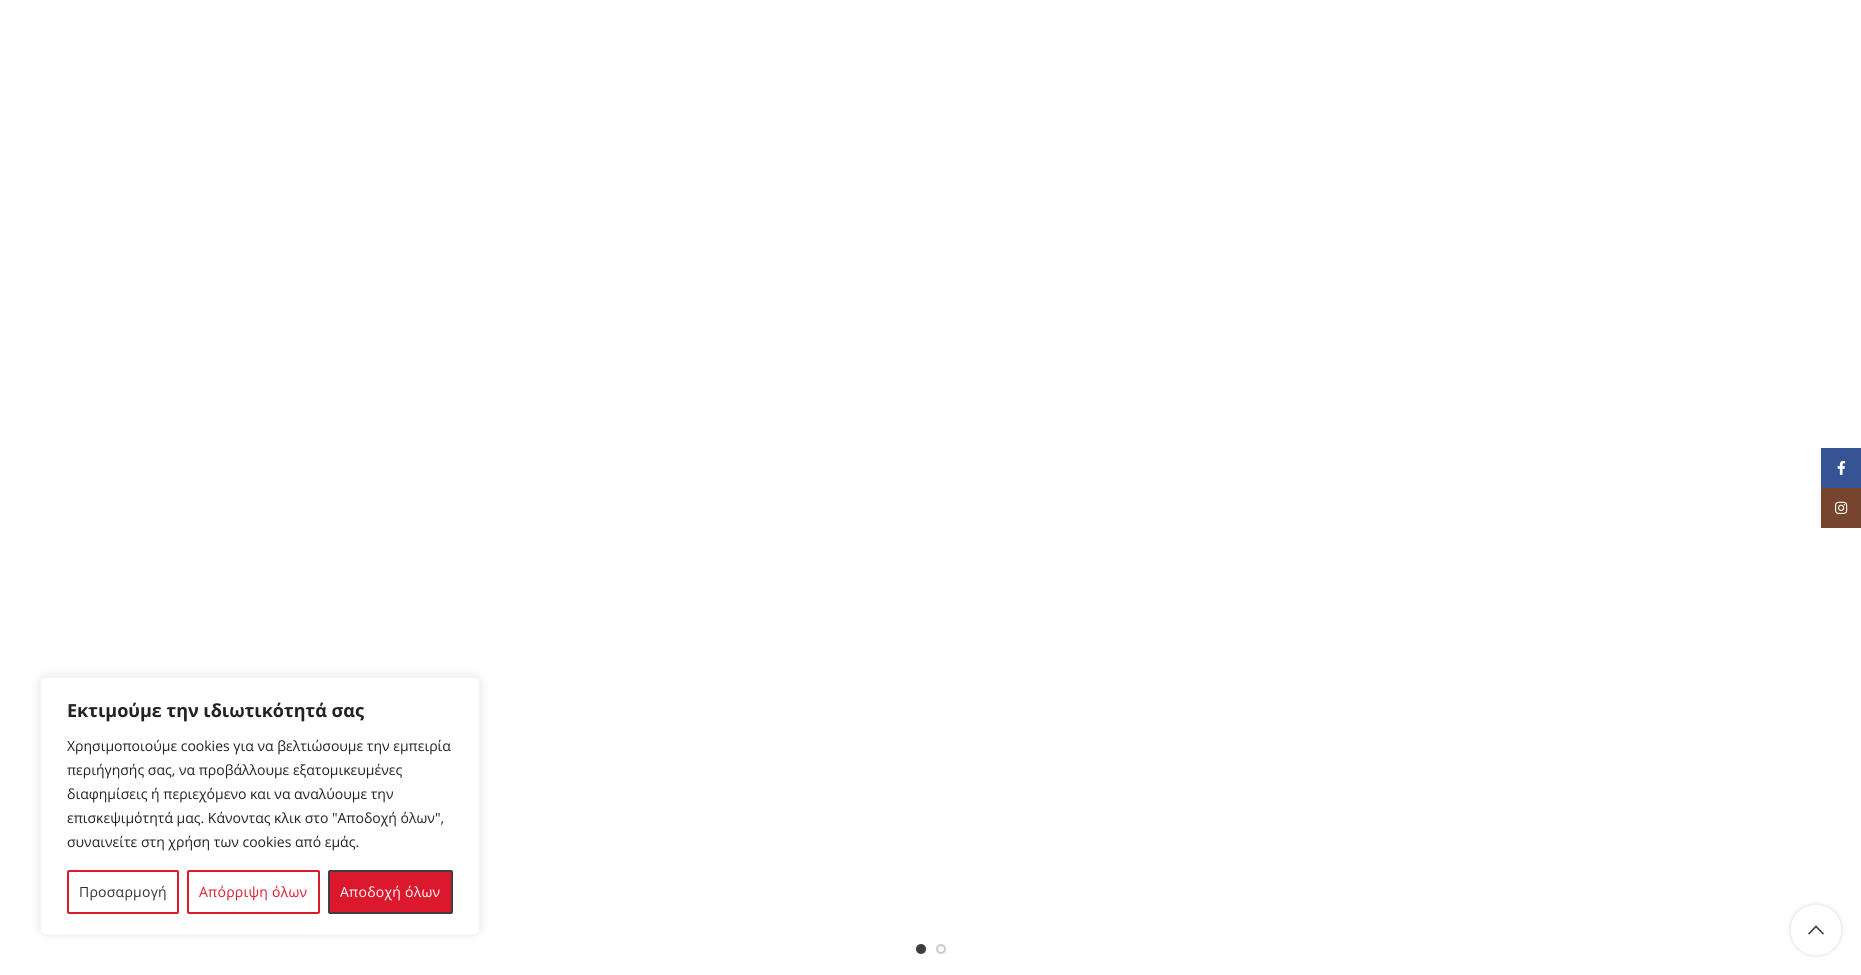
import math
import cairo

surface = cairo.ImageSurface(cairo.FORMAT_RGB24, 1861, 975)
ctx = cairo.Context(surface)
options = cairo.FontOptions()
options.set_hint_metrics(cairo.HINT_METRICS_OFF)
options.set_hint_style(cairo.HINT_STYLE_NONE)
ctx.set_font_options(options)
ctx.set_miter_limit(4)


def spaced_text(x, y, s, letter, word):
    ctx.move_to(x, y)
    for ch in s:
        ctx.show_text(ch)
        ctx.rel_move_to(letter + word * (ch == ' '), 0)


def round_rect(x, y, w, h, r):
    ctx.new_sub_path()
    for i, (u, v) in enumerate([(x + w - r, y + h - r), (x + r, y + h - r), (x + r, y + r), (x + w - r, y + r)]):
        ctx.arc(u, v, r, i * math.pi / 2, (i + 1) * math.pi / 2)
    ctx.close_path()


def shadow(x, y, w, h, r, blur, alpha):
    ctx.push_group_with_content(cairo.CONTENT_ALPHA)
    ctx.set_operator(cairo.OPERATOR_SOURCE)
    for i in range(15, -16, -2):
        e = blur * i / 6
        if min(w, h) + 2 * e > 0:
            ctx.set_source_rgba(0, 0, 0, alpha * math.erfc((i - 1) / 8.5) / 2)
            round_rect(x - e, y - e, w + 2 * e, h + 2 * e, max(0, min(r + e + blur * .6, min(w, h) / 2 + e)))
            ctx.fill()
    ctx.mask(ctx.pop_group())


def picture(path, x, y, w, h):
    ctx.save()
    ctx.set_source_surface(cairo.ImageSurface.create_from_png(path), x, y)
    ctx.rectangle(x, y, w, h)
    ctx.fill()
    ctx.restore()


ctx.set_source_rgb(1, 1, 1)
ctx.paint()
ctx.set_source_rgb(0.212, 0.329, 0.576)
ctx.rectangle(1821, 448, 40, 40)
ctx.fill()
picture("img1.png", 1837, 460, 9, 15)
ctx.set_source_rgb(0.467, 0.267, 0.188)
ctx.rectangle(1821, 488, 40, 40)
ctx.fill()
picture("img2.png", 1835, 501, 13, 13)
ctx.set_source_rgb(0.675, 0.671, 0.671)
shadow(40, 676, 440, 258, 6, 5, 0.3)
ctx.set_source_rgb(1, 1, 1)
round_rect(40.5, 677.5, 439, 257, 5.5)
ctx.fill_preserve()
ctx.set_source_rgb(0.957, 0.957, 0.957)
ctx.set_line_width(1)
ctx.stroke()
ctx.select_font_face("Open Sans", cairo.FONT_SLANT_NORMAL, cairo.FONT_WEIGHT_BOLD)
ctx.set_font_size(18)
ctx.set_source_rgb(0.129, 0.129, 0.129)
ctx.move_to(67, 717)
ctx.show_text("Εκτιμούμε την ιδιωτικότητά σας")
ctx.select_font_face("Open Sans")
ctx.set_font_size(14)
ctx.move_to(67, 751)
ctx.show_text("Χρησιμοποιούμε cookies για να βελτιώσουμε την εμπειρία")
ctx.move_to(67, 775)
ctx.show_text("περιήγησής σας, να προβάλλουμε εξατομικευμένες")
ctx.move_to(67, 799)
ctx.show_text("διαφημίσεις ή περιεχόμενο και να αναλύουμε την")
ctx.move_to(67, 823)
ctx.show_text("επισκεψιμότητά μας. Κάνοντας κλικ στο \"Αποδοχή όλων\",")
ctx.move_to(67, 847)
ctx.show_text("συναινείτε στη χρήση των cookies από εμάς.")
round_rect(68, 871, 110, 42, 1)
ctx.set_source_rgb(0.863, 0.094, 0.176)
ctx.set_line_width(2)
ctx.stroke()
ctx.set_source_rgb(0.192, 0.192, 0.192)
spaced_text(79, 897, "Προσαρμογή", 0.25, 0)
round_rect(188, 871, 131, 42, 1)
ctx.set_source_rgb(0.863, 0.094, 0.176)
ctx.stroke()
spaced_text(199, 897, "Απόρριψη όλων", 0.25, 0)
round_rect(329, 871, 123, 42, 1)
ctx.fill_preserve()
ctx.set_source_rgb(0.247, 0.247, 0.251)
ctx.stroke()
ctx.set_source_rgb(1, 1, 1)
spaced_text(340, 897, "Αποδοχή όλων", 0.25, 0)
ctx.set_source_rgb(0.243, 0.243, 0.243)
ctx.new_path()
ctx.arc(921, 949, 4, 0, 2 * math.pi)
ctx.fill_preserve()
ctx.stroke()
ctx.arc(941, 949, 4, 0, 2 * math.pi)
ctx.set_source_rgb(0.8, 0.8, 0.8)
ctx.stroke()
ctx.save()
ctx.set_fill_rule(cairo.FILL_RULE_EVEN_ODD)
ctx.new_path()
ctx.move_to(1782, 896)
ctx.line_to(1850, 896)
ctx.line_to(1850, 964)
ctx.line_to(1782, 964)
ctx.close_path()
ctx.move_to(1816, 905)
ctx.curve_to(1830, 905, 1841, 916, 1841, 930)
ctx.curve_to(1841, 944, 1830, 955, 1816, 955)
ctx.curve_to(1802, 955, 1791, 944, 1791, 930)
ctx.curve_to(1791, 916, 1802, 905, 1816, 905)
ctx.close_path()
ctx.clip()
ctx.set_source_rgb(0, 0, 0)
shadow(1791, 905, 50, 50, 25, 2.5, 0.17)
ctx.restore()
ctx.set_source_rgba(1, 1, 1, 0.9)
ctx.arc(1816, 930, 25, 0, 2 * math.pi)
ctx.fill()
picture("img3.png", 1808, 925, 16, 10)
surface.write_to_png("page.png")
